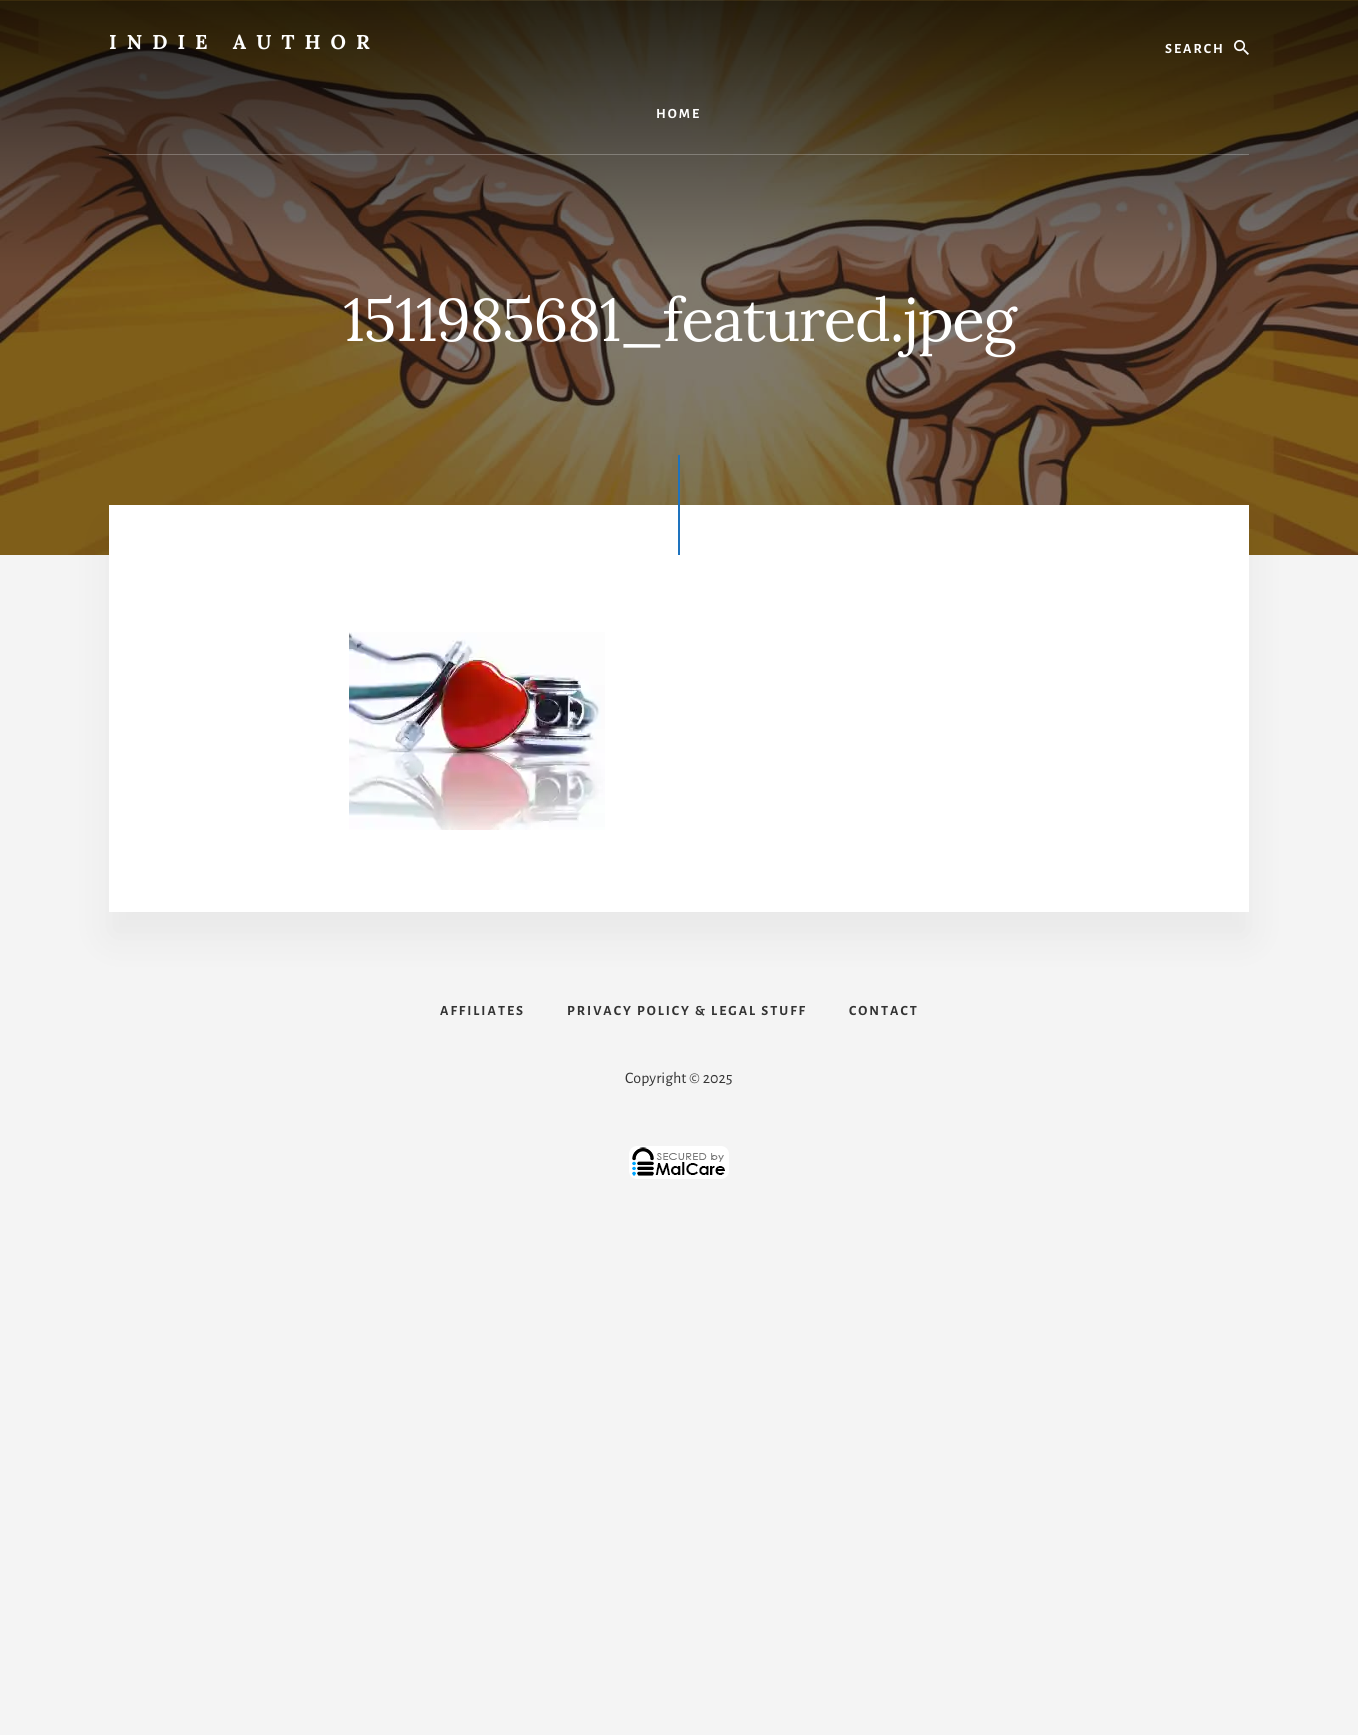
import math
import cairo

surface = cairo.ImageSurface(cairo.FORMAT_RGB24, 1358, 1735)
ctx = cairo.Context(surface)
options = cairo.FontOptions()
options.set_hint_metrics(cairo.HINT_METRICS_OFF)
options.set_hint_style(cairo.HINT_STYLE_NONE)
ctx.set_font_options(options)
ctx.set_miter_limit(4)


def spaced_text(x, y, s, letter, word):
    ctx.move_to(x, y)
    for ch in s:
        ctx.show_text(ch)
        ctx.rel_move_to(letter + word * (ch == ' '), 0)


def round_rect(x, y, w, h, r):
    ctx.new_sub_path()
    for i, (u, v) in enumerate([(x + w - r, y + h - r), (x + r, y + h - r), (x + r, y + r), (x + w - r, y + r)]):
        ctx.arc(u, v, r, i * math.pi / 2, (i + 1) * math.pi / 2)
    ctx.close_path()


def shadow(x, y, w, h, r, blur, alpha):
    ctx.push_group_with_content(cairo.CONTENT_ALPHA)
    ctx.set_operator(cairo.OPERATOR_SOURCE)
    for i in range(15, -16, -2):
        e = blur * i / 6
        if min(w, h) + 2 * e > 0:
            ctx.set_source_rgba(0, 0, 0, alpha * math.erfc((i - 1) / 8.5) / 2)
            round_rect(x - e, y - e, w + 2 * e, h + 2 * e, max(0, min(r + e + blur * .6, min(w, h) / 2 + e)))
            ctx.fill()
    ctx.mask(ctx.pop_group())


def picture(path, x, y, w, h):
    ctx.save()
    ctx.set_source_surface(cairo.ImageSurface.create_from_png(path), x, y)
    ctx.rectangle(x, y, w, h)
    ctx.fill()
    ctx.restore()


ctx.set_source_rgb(0.957, 0.957, 0.957)
ctx.paint()
picture("img1.png", 0, 0, 1358, 555)
ctx.select_font_face("Lora", cairo.FONT_SLANT_NORMAL, cairo.FONT_WEIGHT_BOLD)
ctx.set_font_size(20)
ctx.set_source_rgb(1, 1, 1)
spaced_text(109, 49, "INDIE AUTHOR", 10, 0)
ctx.select_font_face("Alegreya Sans", cairo.FONT_SLANT_NORMAL, cairo.FONT_WEIGHT_BOLD)
ctx.set_font_size(14)
spaced_text(1165, 53, "SEARCH", 2, 0)
picture("img2.png", 1234, 40, 15, 15)
ctx.set_source_rgba(1, 1, 1, 0.25)
ctx.rectangle(109, 154, 1140, 1)
ctx.fill()
ctx.set_source_rgb(1, 1, 1)
spaced_text(656, 118, "HOME", 2, 0)
ctx.select_font_face("Lora")
ctx.set_font_size(60)
spaced_text(343, 341, "1511985681_featured.jpeg", -1.25, 0)
ctx.set_source_rgb(0, 0, 0)
shadow(109, 530, 1140, 407, 0, 20, 0.05)
ctx.set_source_rgb(1, 1, 1)
ctx.rectangle(109, 505, 1140, 407)
ctx.fill()
ctx.set_source_rgb(0.118, 0.451, 0.745)
ctx.rectangle(678, 455, 2, 100)
ctx.fill()
picture("img3.png", 349, 632, 256, 198)
ctx.select_font_face("Alegreya Sans", cairo.FONT_SLANT_NORMAL, cairo.FONT_WEIGHT_BOLD)
ctx.set_font_size(14)
ctx.set_source_rgb(0.2, 0.2, 0.2)
spaced_text(440, 1015, "AFFILIATES", 2, 0)
spaced_text(567, 1015, "PRIVACY POLICY & LEGAL STUFF", 2, 0)
spaced_text(849, 1015, "CONTACT", 2, 0)
ctx.select_font_face("Alegreya Sans")
ctx.set_font_size(16)
ctx.move_to(625, 1083)
ctx.show_text("Copyright © 2025")
picture("img4.png", 629, 1146, 100, 33)
surface.write_to_png("page.png")
